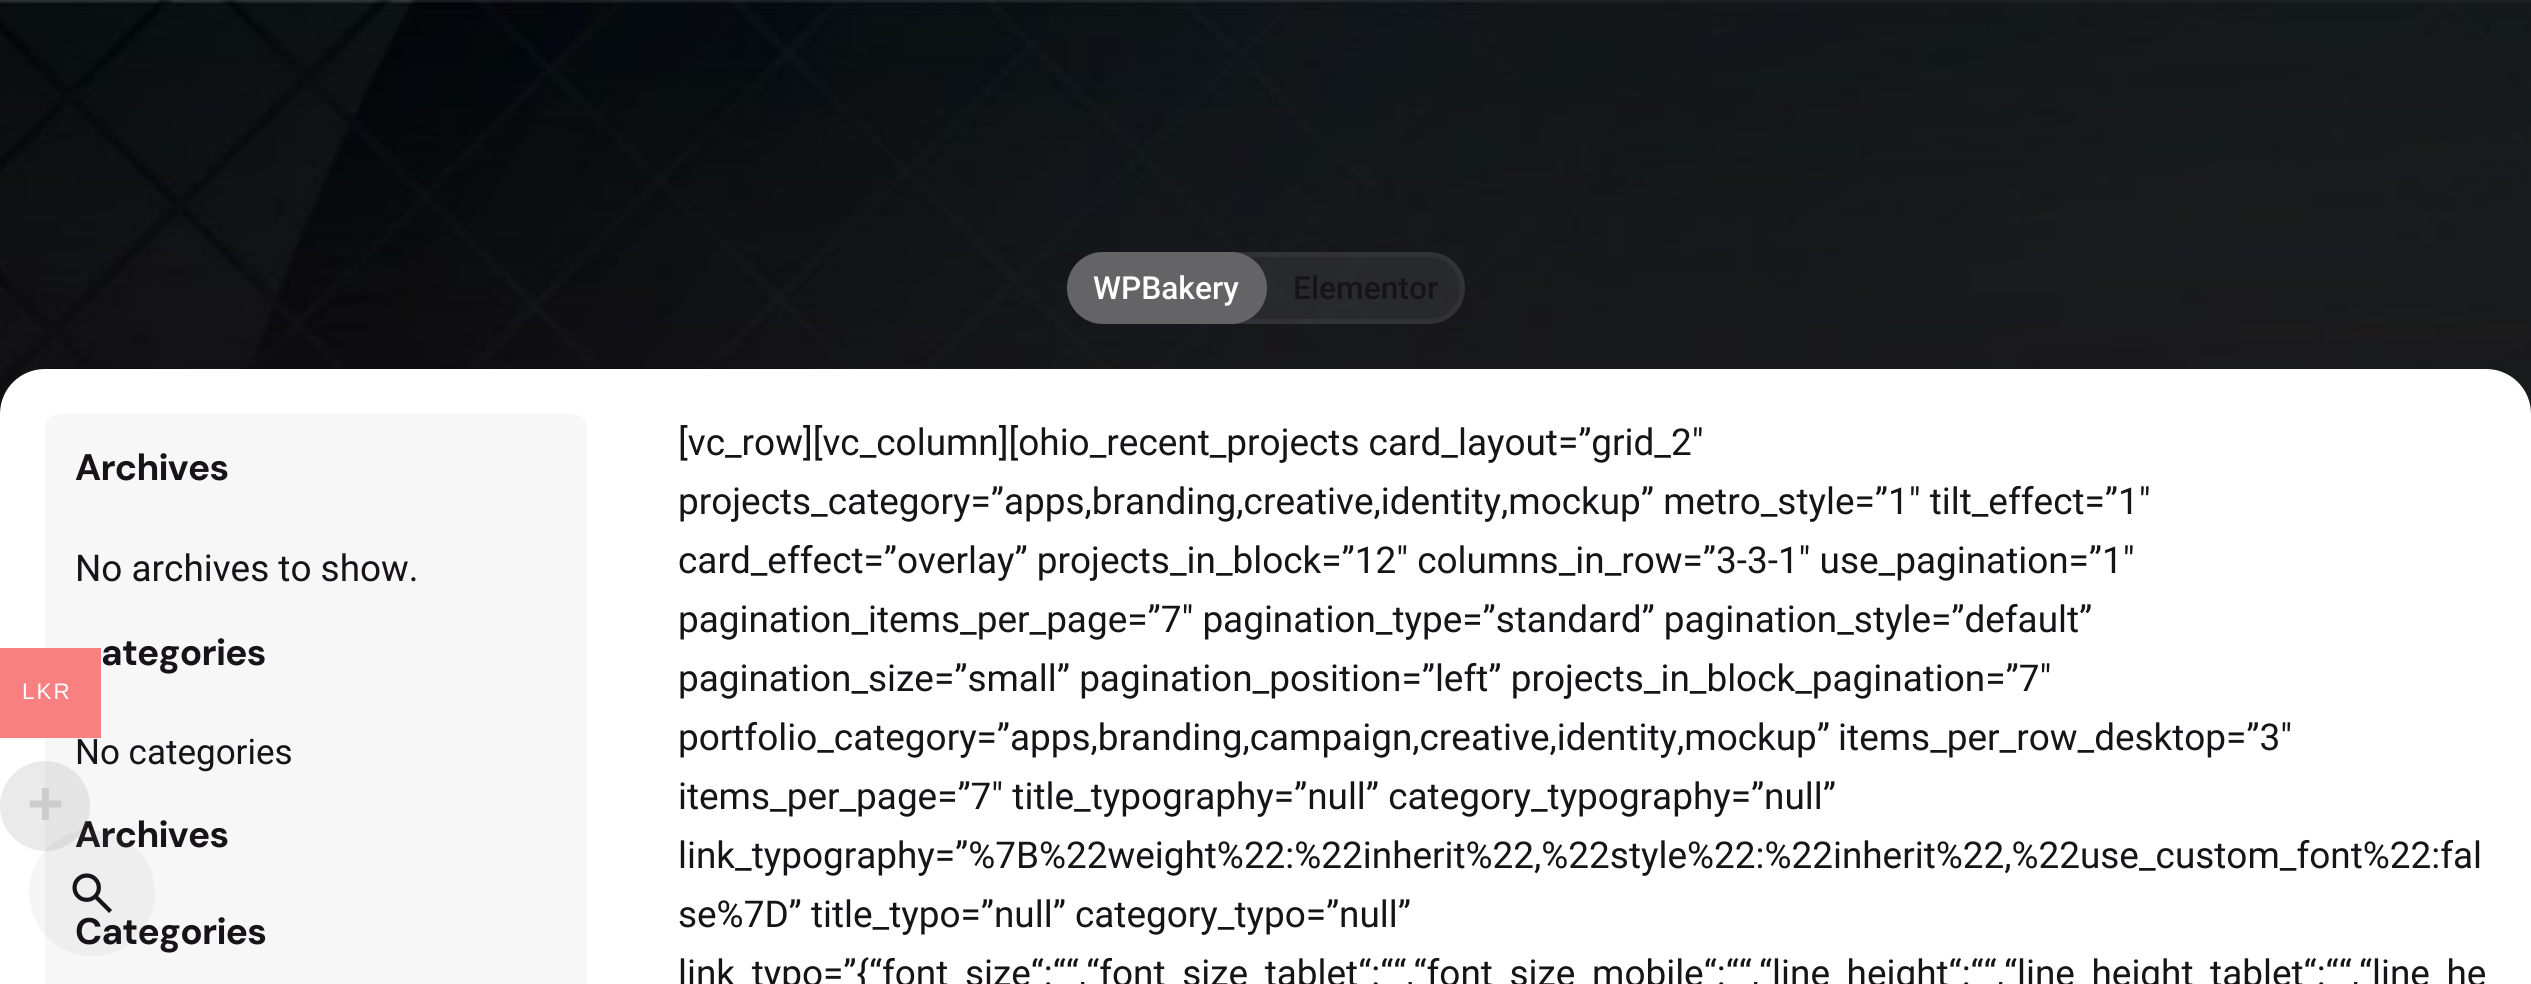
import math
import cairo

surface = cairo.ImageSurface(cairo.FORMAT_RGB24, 2531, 984)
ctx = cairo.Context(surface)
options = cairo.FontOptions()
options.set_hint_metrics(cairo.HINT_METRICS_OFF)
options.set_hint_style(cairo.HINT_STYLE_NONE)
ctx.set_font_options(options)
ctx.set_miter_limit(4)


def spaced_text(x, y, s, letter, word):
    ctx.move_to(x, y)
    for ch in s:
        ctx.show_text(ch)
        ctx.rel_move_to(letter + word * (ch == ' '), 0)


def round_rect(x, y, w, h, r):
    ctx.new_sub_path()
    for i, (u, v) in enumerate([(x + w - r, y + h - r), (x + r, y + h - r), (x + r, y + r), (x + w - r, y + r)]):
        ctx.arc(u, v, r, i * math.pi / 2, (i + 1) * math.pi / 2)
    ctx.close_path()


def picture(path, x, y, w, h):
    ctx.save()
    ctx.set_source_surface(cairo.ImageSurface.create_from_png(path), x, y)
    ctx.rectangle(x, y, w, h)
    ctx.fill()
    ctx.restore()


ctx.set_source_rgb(1, 1, 1)
ctx.paint()
ctx.set_source_rgb(0.965, 0.965, 0.965)
round_rect(45, 414, 542, 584, 14)
ctx.fill()
ctx.set_source_rgb(0.969, 0.502, 0.502)
ctx.rectangle(0, 648, 101, 90)
ctx.fill()
ctx.select_font_face("Liberation Sans")
ctx.set_font_size(22.5)
ctx.set_source_rgb(1, 1, 1)
spaced_text(22, 699, "LKR", 2, 0)
ctx.select_font_face("Roboto")
ctx.set_font_size(35)
ctx.set_source_rgb(0.086, 0.082, 0.094)
ctx.move_to(75, 764)
ctx.show_text("No categories")
ctx.select_font_face("DM Sans", cairo.FONT_SLANT_NORMAL, cairo.FONT_WEIGHT_BOLD)
ctx.set_font_size(36.9)
spaced_text(75, 847, "Archives", -0.75, 0)
ctx.set_source_rgba(0.533, 0.533, 0.537, 0.08)
ctx.new_path()
ctx.arc(92, 893, 63, 0, 2 * math.pi)
ctx.fill()
ctx.set_source_rgba(0.6, 0.6, 0.6, 0.2)
ctx.arc(45, 806, 45, 0, 2 * math.pi)
ctx.fill()
ctx.select_font_face("Liberation Sans", cairo.FONT_SLANT_NORMAL, cairo.FONT_WEIGHT_BOLD)
ctx.set_font_size(63)
ctx.set_source_rgb(0.8, 0.8, 0.8)
ctx.move_to(27, 825)
ctx.show_text("+")
picture("img1.png", 0, 0, 2531, 414)
ctx.set_source_rgba(0.533, 0.533, 0.537, 0.16)
round_rect(1067, 252, 398, 72, 36)
ctx.fill()
round_rect(1069.5, 254.5, 393, 67, 33.5)
ctx.set_source_rgba(0.533, 0.533, 0.537, 0.1)
ctx.set_line_width(5)
ctx.stroke()
ctx.set_source_rgb(0.392, 0.392, 0.4)
round_rect(1067, 252, 200, 72, 36)
ctx.fill()
ctx.select_font_face("Roboto Medium")
ctx.set_font_size(31.75)
ctx.set_source_rgb(1, 1, 1)
ctx.move_to(1093, 299)
ctx.show_text("WPBakery")
ctx.set_source_rgb(0.086, 0.082, 0.094)
ctx.move_to(1293, 299)
ctx.show_text("Elementor")
ctx.set_source_rgb(1, 1, 1)
ctx.new_path()
ctx.move_to(45, 369)
ctx.line_to(2486, 369)
ctx.curve_to(2511, 369, 2531, 389, 2531, 414)
ctx.line_to(0, 414)
ctx.curve_to(0, 389, 20, 369, 45, 369)
ctx.close_path()
ctx.fill()
ctx.select_font_face("DM Sans", cairo.FONT_SLANT_NORMAL, cairo.FONT_WEIGHT_BOLD)
ctx.set_font_size(36.9)
ctx.set_source_rgb(0.086, 0.082, 0.094)
spaced_text(75, 480, "Archives", -0.75, 0)
ctx.select_font_face("Roboto")
ctx.move_to(75, 581)
ctx.show_text("No archives to show.")
ctx.select_font_face("DM Sans", cairo.FONT_SLANT_NORMAL, cairo.FONT_WEIGHT_BOLD)
spaced_text(101, 665, "ategories", -0.75, 0)
spaced_text(75, 944, "Categories", -0.75, 0)
ctx.select_font_face("Roboto")
ctx.move_to(678, 455)
ctx.show_text("[vc_row][vc_column][ohio_recent_projects card_layout=”grid_2″")
ctx.move_to(678, 514)
ctx.show_text("projects_category=”apps,branding,creative,identity,mockup” metro_style=”1″ tilt_effect=”1″")
ctx.move_to(678, 573)
ctx.show_text("card_effect=”overlay” projects_in_block=”12″ columns_in_row=”3-3-1″ use_pagination=”1″")
ctx.move_to(678, 632)
ctx.show_text("pagination_items_per_page=”7″ pagination_type=”standard” pagination_style=”default”")
ctx.move_to(678, 691)
ctx.show_text("pagination_size=”small” pagination_position=”left” projects_in_block_pagination=”7″")
spaced_text(678, 750, "portfolio_category=”apps,branding,campaign,creative,identity,mockup” items_per_row_desktop=”3″", 0, -1)
ctx.move_to(678, 809)
ctx.show_text("items_per_page=”7″ title_typography=”null” category_typography=”null”")
ctx.move_to(678, 868)
ctx.show_text("link_typography=”%7B%22weight%22:%22inherit%22,%22style%22:%22inherit%22,%22use_custom_font%22:fal")
ctx.move_to(678, 927)
ctx.show_text("se%7D” title_typo=”null” category_typo=”null”")
ctx.move_to(678, 986)
ctx.show_text("link_typo=”{“font_size“:““,“font_size_tablet“:““,“font_size_mobile“:““,“line_height“:““,“line_height_tablet“:““,“line_he")
picture("img2.png", 72, 873, 40, 40)
surface.write_to_png("page.png")
